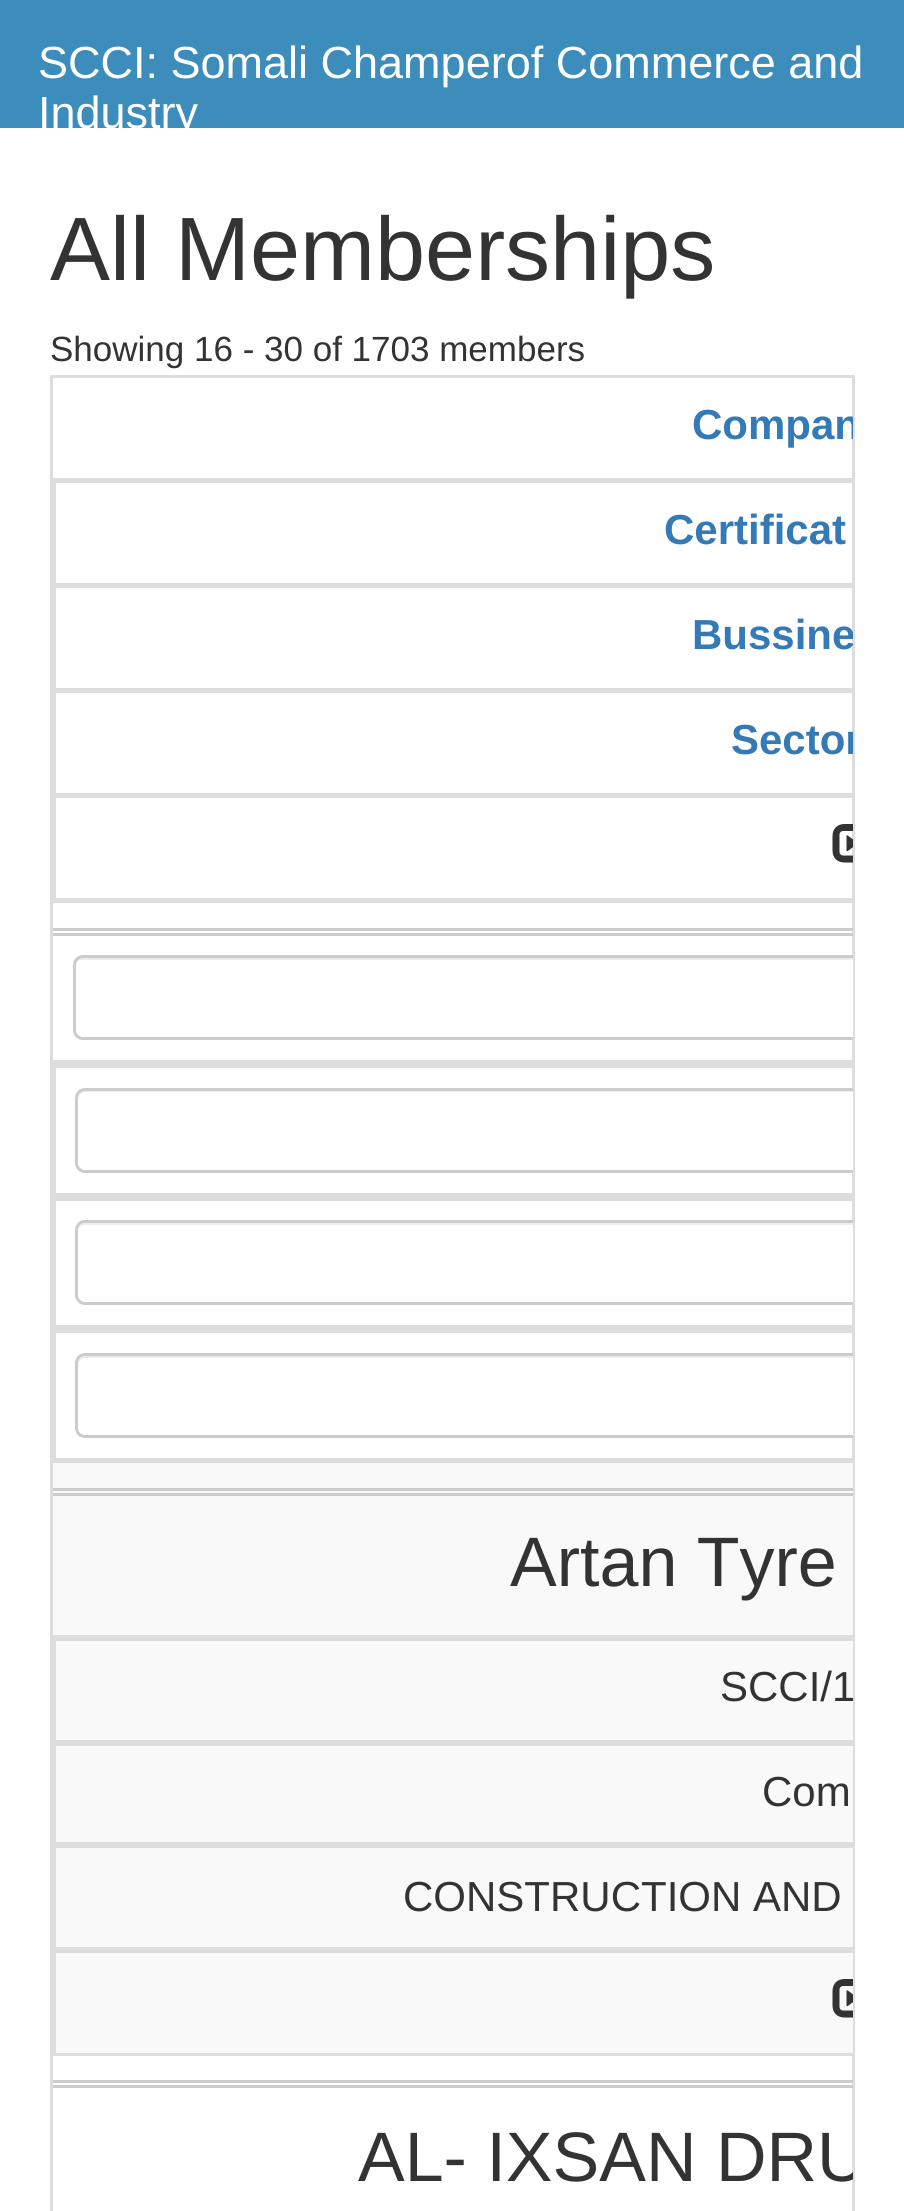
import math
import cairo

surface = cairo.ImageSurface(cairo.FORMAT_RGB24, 904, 2211)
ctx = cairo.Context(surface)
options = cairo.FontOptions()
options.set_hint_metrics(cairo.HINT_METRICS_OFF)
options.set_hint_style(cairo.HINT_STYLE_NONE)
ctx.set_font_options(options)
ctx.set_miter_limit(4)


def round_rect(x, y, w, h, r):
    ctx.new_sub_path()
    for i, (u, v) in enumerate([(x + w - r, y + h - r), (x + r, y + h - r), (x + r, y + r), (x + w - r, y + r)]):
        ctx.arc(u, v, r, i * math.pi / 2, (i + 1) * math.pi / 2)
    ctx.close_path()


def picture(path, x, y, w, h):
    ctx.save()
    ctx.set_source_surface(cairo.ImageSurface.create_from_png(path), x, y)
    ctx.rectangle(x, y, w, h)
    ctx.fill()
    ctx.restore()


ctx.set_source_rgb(1, 1, 1)
ctx.paint()
ctx.set_source_rgb(0.235, 0.553, 0.737)
ctx.rectangle(0, 0, 904, 128)
ctx.fill()
ctx.select_font_face("Liberation Sans")
ctx.set_font_size(45)
ctx.set_source_rgb(1, 1, 1)
ctx.move_to(38, 78)
ctx.show_text("SCCI: Somali Champerof Commerce and")
ctx.move_to(38, 128)
ctx.show_text("Industry")
ctx.set_font_size(90)
ctx.set_source_rgb(0.2, 0.2, 0.2)
ctx.move_to(50, 280)
ctx.show_text("All Memberships")
ctx.set_font_size(35)
ctx.move_to(50, 361)
ctx.show_text("Showing 16 - 30 of 1703 members")
ctx.rectangle(51.5, 376.5, 802, 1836)
ctx.set_source_rgb(0.867, 0.867, 0.867)
ctx.set_line_width(3)
ctx.stroke()
ctx.rectangle(53, 478, 800, 5)
ctx.fill()
ctx.save()
ctx.rectangle(53, 378, 800, 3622)
ctx.clip()
ctx.select_font_face("Liberation Sans", cairo.FONT_SLANT_NORMAL, cairo.FONT_WEIGHT_BOLD)
ctx.set_font_size(42)
ctx.set_source_rgb(0.2, 0.478, 0.718)
ctx.move_to(692, 439)
ctx.show_text("Compan")
ctx.restore()
ctx.rectangle(53, 583, 800, 5)
ctx.fill()
ctx.rectangle(53, 483, 3, 105)
ctx.fill()
ctx.select_font_face("Liberation Sans", cairo.FONT_SLANT_NORMAL, cairo.FONT_WEIGHT_BOLD)
ctx.set_font_size(42)
ctx.set_source_rgb(0.2, 0.478, 0.718)
ctx.move_to(664, 544)
ctx.show_text("Certificat")
ctx.set_source_rgb(0.867, 0.867, 0.867)
ctx.rectangle(53, 688, 800, 5)
ctx.fill()
ctx.rectangle(53, 588, 3, 105)
ctx.fill()
ctx.save()
ctx.rectangle(53, 378, 800, 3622)
ctx.clip()
ctx.set_source_rgb(0.2, 0.478, 0.718)
ctx.move_to(692, 649)
ctx.show_text("Bussine")
ctx.restore()
ctx.rectangle(53, 793, 800, 5)
ctx.fill()
ctx.rectangle(53, 693, 3, 105)
ctx.fill()
ctx.save()
ctx.rectangle(53, 378, 800, 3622)
ctx.clip()
ctx.set_source_rgb(0.2, 0.478, 0.718)
ctx.move_to(731, 754)
ctx.show_text("Sector")
ctx.restore()
ctx.rectangle(53, 898, 800, 5)
ctx.fill()
ctx.rectangle(53, 798, 3, 105)
ctx.fill()
picture("img1.png", 832, 824, 21, 39)
ctx.set_source_rgb(0.8, 0.8, 0.8)
ctx.rectangle(53, 928, 800, 3)
ctx.fill()
ctx.rectangle(53, 933, 800, 3)
ctx.fill()
ctx.set_source_rgb(0.867, 0.867, 0.867)
ctx.rectangle(53, 1060, 800, 8)
ctx.fill()
ctx.set_source_rgb(1, 1, 1)
ctx.new_path()
ctx.move_to(83, 955)
ctx.line_to(853, 955)
ctx.line_to(853, 1040)
ctx.line_to(83, 1040)
ctx.curve_to(77.5, 1040, 73, 1035.5, 73, 1030)
ctx.line_to(73, 965)
ctx.curve_to(73, 959.5, 77.5, 955, 83, 955)
ctx.close_path()
ctx.fill()
ctx.save()
ctx.rectangle(53, 378, 800, 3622)
ctx.clip()
ctx.set_source_rgb(0.925, 0.925, 0.925)
ctx.new_path()
ctx.move_to(82, 960)
ctx.line_to(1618, 960)
ctx.curve_to(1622, 960, 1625, 963, 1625, 968)
ctx.line_to(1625, 966)
ctx.curve_to(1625, 962, 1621, 958, 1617, 958)
ctx.line_to(83, 958)
ctx.curve_to(79, 958, 75, 962, 75, 966)
ctx.line_to(75, 968)
ctx.curve_to(75, 963, 78, 960, 82, 960)
ctx.close_path()
ctx.fill()
round_rect(74.5, 956.5, 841, 82, 8.5)
ctx.set_source_rgb(0.8, 0.8, 0.8)
ctx.stroke()
ctx.restore()
ctx.set_source_rgb(0.867, 0.867, 0.867)
ctx.rectangle(53, 1193, 800, 8)
ctx.fill()
ctx.rectangle(53, 1065, 3, 133)
ctx.fill()
ctx.set_source_rgb(1, 1, 1)
ctx.new_path()
ctx.move_to(85, 1088)
ctx.line_to(853, 1088)
ctx.line_to(853, 1173)
ctx.line_to(85, 1173)
ctx.curve_to(79.5, 1173, 75, 1168.5, 75, 1163)
ctx.line_to(75, 1098)
ctx.curve_to(75, 1092.5, 79.5, 1088, 85, 1088)
ctx.close_path()
ctx.fill()
ctx.save()
ctx.rectangle(53, 378, 800, 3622)
ctx.clip()
ctx.set_source_rgb(0.925, 0.925, 0.925)
ctx.new_path()
ctx.move_to(85, 1092)
ctx.line_to(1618, 1092)
ctx.curve_to(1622, 1092, 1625, 1096, 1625, 1100)
ctx.line_to(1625, 1098)
ctx.curve_to(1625, 1094, 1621, 1090, 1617, 1090)
ctx.line_to(86, 1090)
ctx.curve_to(82, 1090, 78, 1094, 78, 1098)
ctx.line_to(78, 1100)
ctx.curve_to(78, 1096, 81, 1092, 85, 1092)
ctx.close_path()
ctx.fill()
round_rect(76.5, 1089.5, 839, 82, 8.5)
ctx.set_source_rgb(0.8, 0.8, 0.8)
ctx.stroke()
ctx.restore()
ctx.set_source_rgb(0.867, 0.867, 0.867)
ctx.rectangle(53, 1325, 800, 8)
ctx.fill()
ctx.rectangle(53, 1198, 3, 132)
ctx.fill()
ctx.set_source_rgb(1, 1, 1)
ctx.new_path()
ctx.move_to(85, 1220)
ctx.line_to(853, 1220)
ctx.line_to(853, 1305)
ctx.line_to(85, 1305)
ctx.curve_to(79.5, 1305, 75, 1300.5, 75, 1295)
ctx.line_to(75, 1230)
ctx.curve_to(75, 1224.5, 79.5, 1220, 85, 1220)
ctx.close_path()
ctx.fill()
ctx.save()
ctx.rectangle(53, 378, 800, 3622)
ctx.clip()
ctx.set_source_rgb(0.925, 0.925, 0.925)
ctx.new_path()
ctx.move_to(85, 1225)
ctx.line_to(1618, 1225)
ctx.curve_to(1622, 1225, 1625, 1228, 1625, 1232)
ctx.curve_to(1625, 1227, 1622, 1223, 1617, 1223)
ctx.line_to(86, 1223)
ctx.curve_to(81, 1223, 78, 1227, 78, 1232)
ctx.curve_to(78, 1228, 81, 1225, 85, 1225)
ctx.close_path()
ctx.fill()
round_rect(76.5, 1221.5, 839, 82, 8.5)
ctx.set_source_rgb(0.8, 0.8, 0.8)
ctx.stroke()
ctx.restore()
ctx.set_source_rgb(0.867, 0.867, 0.867)
ctx.rectangle(53, 1458, 800, 5)
ctx.fill()
ctx.rectangle(53, 1330, 3, 133)
ctx.fill()
ctx.set_source_rgb(1, 1, 1)
ctx.new_path()
ctx.move_to(85, 1353)
ctx.line_to(853, 1353)
ctx.line_to(853, 1438)
ctx.line_to(85, 1438)
ctx.curve_to(79.5, 1438, 75, 1433.5, 75, 1428)
ctx.line_to(75, 1363)
ctx.curve_to(75, 1357.5, 79.5, 1353, 85, 1353)
ctx.close_path()
ctx.fill()
ctx.save()
ctx.rectangle(53, 378, 800, 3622)
ctx.clip()
ctx.set_source_rgb(0.925, 0.925, 0.925)
ctx.new_path()
ctx.move_to(85, 1358)
ctx.line_to(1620, 1358)
ctx.curve_to(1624, 1358, 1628, 1361, 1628, 1365)
ctx.line_to(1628, 1363)
ctx.curve_to(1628, 1359, 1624, 1355, 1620, 1355)
ctx.line_to(86, 1355)
ctx.curve_to(82, 1355, 78, 1359, 78, 1363)
ctx.line_to(78, 1365)
ctx.curve_to(78, 1361, 81, 1358, 85, 1358)
ctx.close_path()
ctx.fill()
round_rect(76.5, 1354.5, 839, 82, 8.5)
ctx.set_source_rgb(0.8, 0.8, 0.8)
ctx.stroke()
ctx.restore()
ctx.set_source_rgb(0.976, 0.976, 0.976)
ctx.rectangle(53, 1463, 800, 590)
ctx.fill()
ctx.set_source_rgb(0.8, 0.8, 0.8)
ctx.rectangle(53, 1488, 800, 3)
ctx.fill()
ctx.rectangle(53, 1493, 800, 3)
ctx.fill()
ctx.set_source_rgb(0.867, 0.867, 0.867)
ctx.rectangle(53, 1635, 800, 3)
ctx.fill()
ctx.select_font_face("Liberation Sans")
ctx.set_font_size(70)
ctx.set_source_rgb(0.2, 0.2, 0.2)
ctx.move_to(510, 1586)
ctx.show_text("Artan Tyre")
ctx.save()
ctx.rectangle(53, 378, 800, 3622)
ctx.clip()
ctx.rectangle(54.5, 1639.5, 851, 102)
ctx.set_source_rgb(0.867, 0.867, 0.867)
ctx.stroke()
ctx.set_font_size(42)
ctx.set_source_rgb(0.2, 0.2, 0.2)
ctx.move_to(720, 1701)
ctx.show_text("SCCI/1")
ctx.rectangle(54.5, 1744.5, 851, 99)
ctx.set_source_rgb(0.867, 0.867, 0.867)
ctx.stroke()
ctx.restore()
ctx.set_font_size(42)
ctx.move_to(762, 1806)
ctx.show_text("Com")
ctx.save()
ctx.rectangle(53, 378, 800, 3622)
ctx.clip()
ctx.rectangle(54.5, 1846.5, 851, 102)
ctx.set_source_rgb(0.867, 0.867, 0.867)
ctx.stroke()
ctx.restore()
ctx.move_to(403, 1911)
ctx.show_text("CONSTRUCTION AND")
ctx.set_source_rgb(0.867, 0.867, 0.867)
ctx.rectangle(53, 1950, 800, 3)
ctx.fill()
ctx.rectangle(53, 2053, 800, 3)
ctx.fill()
ctx.rectangle(53, 1950, 3, 105)
ctx.fill()
picture("img2.png", 832, 1979, 21, 39)
ctx.set_source_rgb(0.8, 0.8, 0.8)
ctx.rectangle(53, 2080, 800, 3)
ctx.fill()
ctx.rectangle(53, 2085, 800, 3)
ctx.fill()
ctx.save()
ctx.rectangle(53, 378, 800, 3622)
ctx.clip()
ctx.set_font_size(70)
ctx.set_source_rgb(0.2, 0.2, 0.2)
ctx.move_to(358, 2181)
ctx.show_text("AL- IXSAN DRU")
ctx.restore()
surface.write_to_png("page.png")
